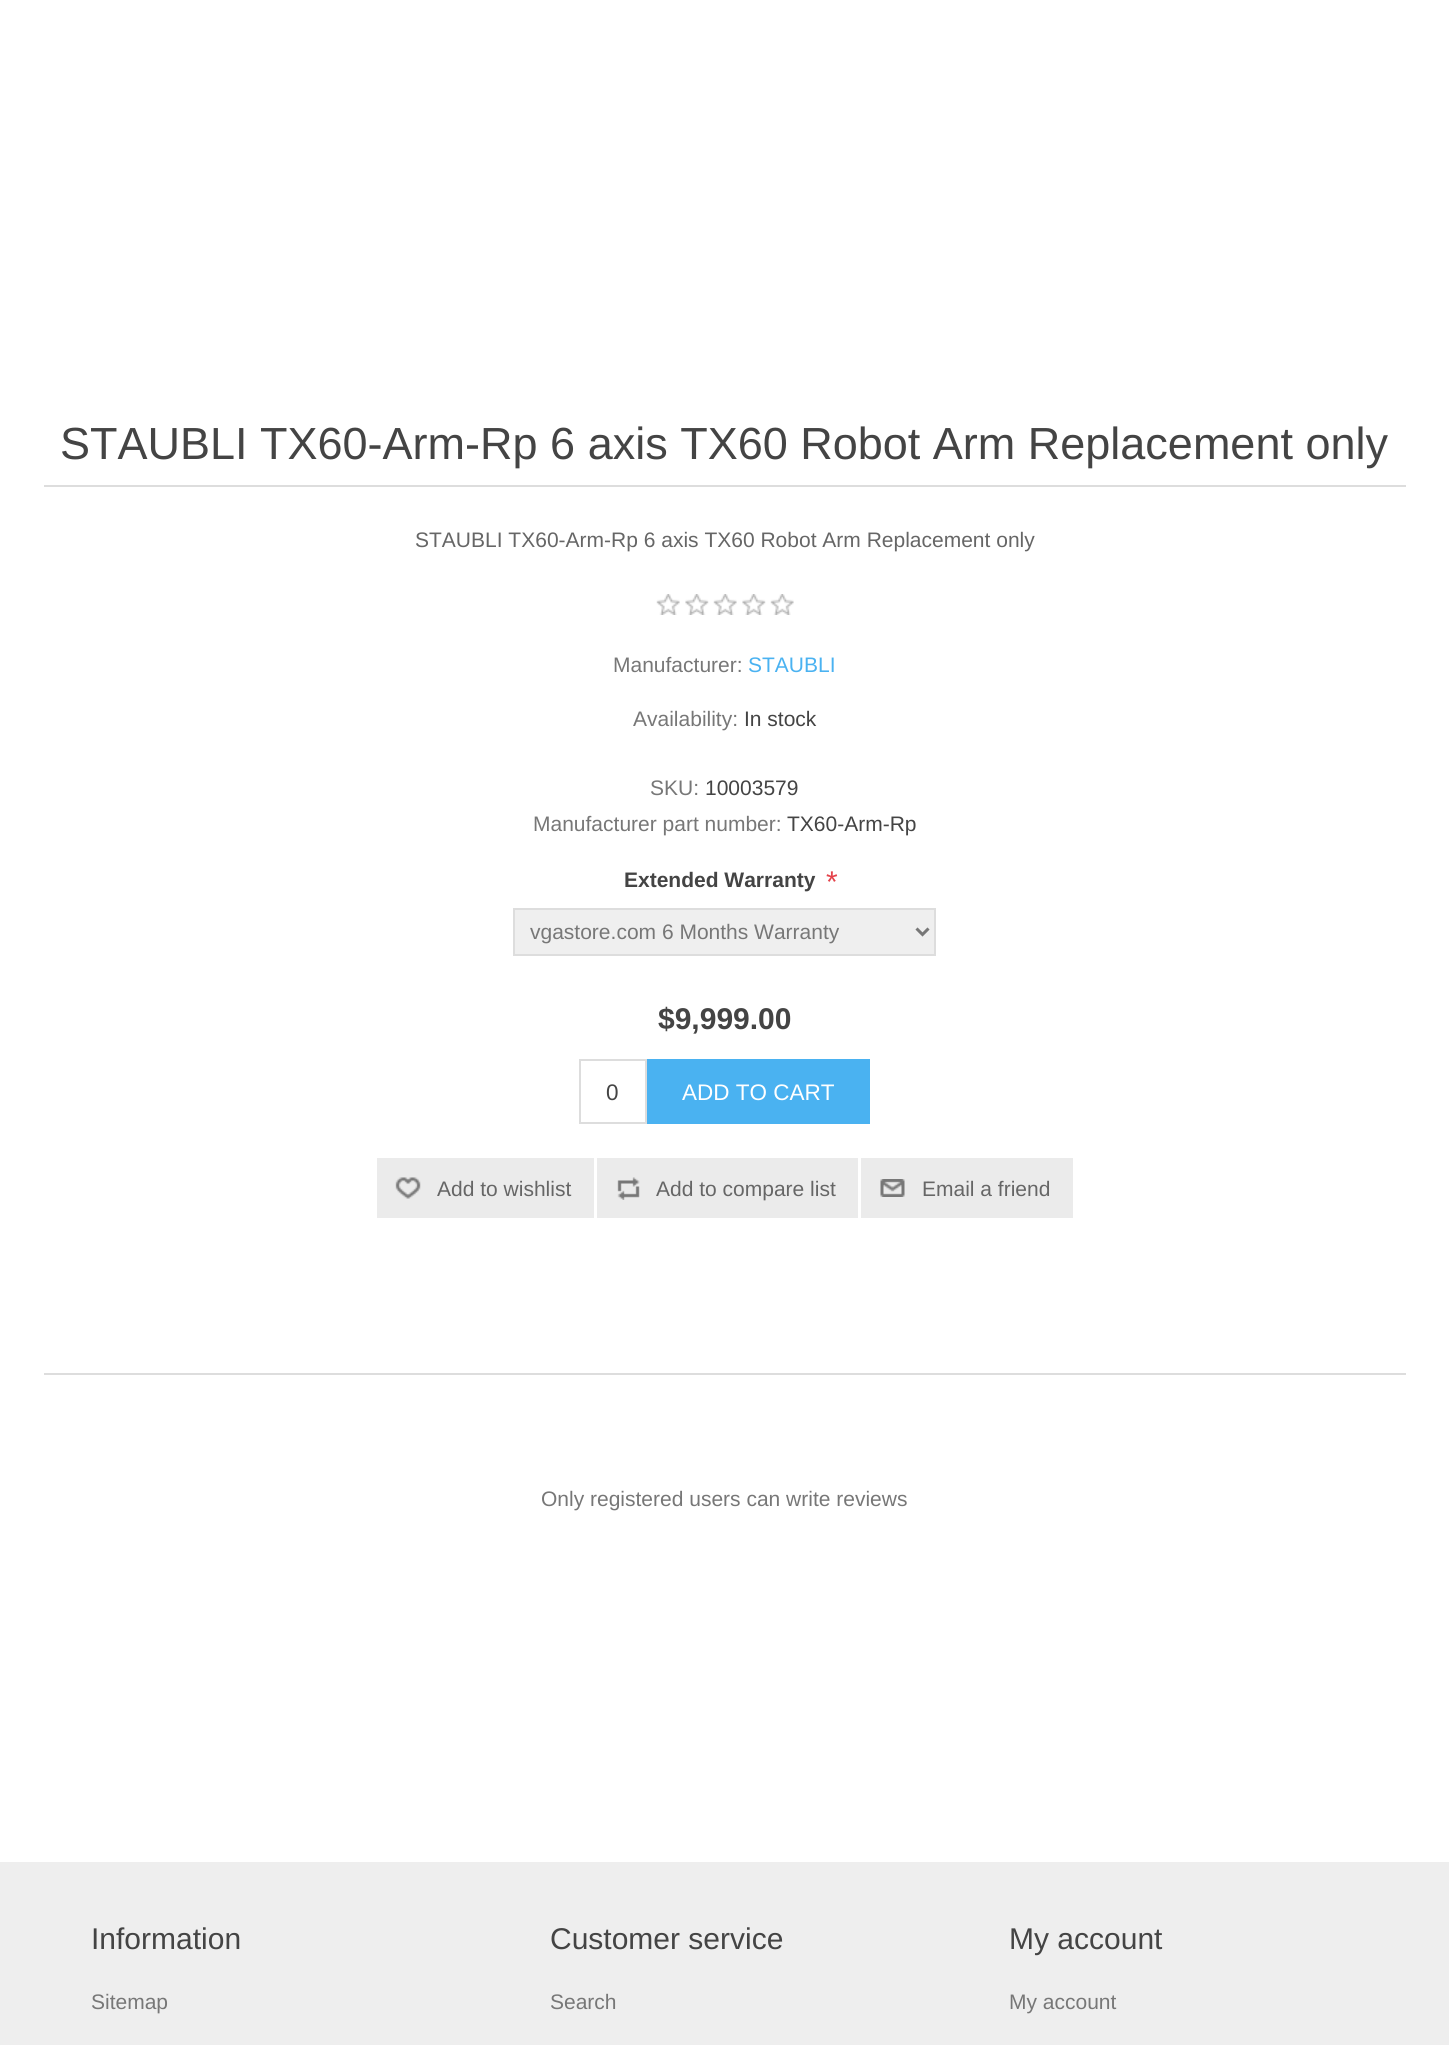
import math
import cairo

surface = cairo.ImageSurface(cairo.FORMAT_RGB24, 1449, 2045)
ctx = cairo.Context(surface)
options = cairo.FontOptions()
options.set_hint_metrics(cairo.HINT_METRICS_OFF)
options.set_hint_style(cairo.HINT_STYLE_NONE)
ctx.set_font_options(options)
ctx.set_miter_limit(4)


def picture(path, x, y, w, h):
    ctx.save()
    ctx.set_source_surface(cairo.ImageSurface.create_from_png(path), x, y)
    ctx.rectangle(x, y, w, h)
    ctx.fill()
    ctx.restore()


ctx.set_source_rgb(1, 1, 1)
ctx.paint()
ctx.set_source_rgb(0.867, 0.867, 0.867)
ctx.rectangle(44, 1373, 1362, 2)
ctx.fill()
ctx.rectangle(44, 485, 1362, 2)
ctx.fill()
ctx.select_font_face("Liberation Sans")
ctx.set_font_size(45)
ctx.set_source_rgb(0.267, 0.267, 0.267)
ctx.move_to(60, 459)
ctx.show_text("STAUBLI TX60-Arm-Rp 6 axis TX60 Robot Arm Replacement only")
ctx.set_font_size(21)
ctx.set_source_rgb(0.4, 0.4, 0.4)
ctx.move_to(415, 547)
ctx.show_text("STAUBLI TX60-Arm-Rp 6 axis TX60 Robot Arm Replacement only")
picture("img1.png", 656, 594, 138, 21)
ctx.set_source_rgb(0.467, 0.467, 0.467)
ctx.move_to(613, 672)
ctx.show_text("Manufacturer:")
ctx.set_source_rgb(0.29, 0.698, 0.945)
ctx.move_to(748, 672)
ctx.show_text("STAUBLI")
ctx.set_source_rgb(0.467, 0.467, 0.467)
ctx.move_to(633, 726)
ctx.show_text("Availability:")
ctx.set_source_rgb(0.267, 0.267, 0.267)
ctx.move_to(744, 726)
ctx.show_text("In stock")
ctx.set_source_rgb(0.467, 0.467, 0.467)
ctx.move_to(650, 795)
ctx.show_text("SKU:")
ctx.set_source_rgb(0.267, 0.267, 0.267)
ctx.move_to(705, 795)
ctx.show_text("10003579")
ctx.set_source_rgb(0.467, 0.467, 0.467)
ctx.move_to(533, 831)
ctx.show_text("Manufacturer part number:")
ctx.set_source_rgb(0.267, 0.267, 0.267)
ctx.move_to(787, 831)
ctx.show_text("TX60-Arm-Rp")
ctx.select_font_face("Liberation Sans", cairo.FONT_SLANT_NORMAL, cairo.FONT_WEIGHT_BOLD)
ctx.move_to(624, 887)
ctx.show_text("Extended Warranty")
ctx.select_font_face("Liberation Sans")
ctx.set_font_size(30)
ctx.set_source_rgb(0.894, 0.263, 0.294)
ctx.move_to(826, 892)
ctx.show_text("*")
ctx.set_source_rgb(0.937, 0.937, 0.937)
ctx.rectangle(514, 909, 421, 46)
ctx.fill_preserve()
ctx.set_source_rgb(0.867, 0.867, 0.867)
ctx.stroke()
ctx.new_path()
ctx.move_to(916.5, 928.5)
ctx.line_to(922.5, 934.5)
ctx.line_to(928.5, 928.5)
ctx.set_source_rgb(0.467, 0.467, 0.467)
ctx.set_line_width(3)
ctx.stroke()
ctx.set_font_size(21)
ctx.move_to(530, 939)
ctx.show_text("vgastore.com 6 Months Warranty")
ctx.select_font_face("Liberation Sans", cairo.FONT_SLANT_NORMAL, cairo.FONT_WEIGHT_BOLD)
ctx.set_font_size(30)
ctx.set_source_rgb(0.267, 0.267, 0.267)
ctx.move_to(658, 1029)
ctx.show_text("$9,999.00")
ctx.rectangle(580, 1060, 66, 63)
ctx.set_source_rgb(0.867, 0.867, 0.867)
ctx.set_line_width(2)
ctx.stroke()
ctx.select_font_face("Liberation Sans")
ctx.set_font_size(22.5)
ctx.set_source_rgb(0.267, 0.267, 0.267)
ctx.move_to(606, 1100)
ctx.show_text("0")
ctx.set_source_rgb(0.29, 0.698, 0.945)
ctx.rectangle(647, 1059, 223, 65)
ctx.fill()
ctx.set_source_rgb(1, 1, 1)
ctx.move_to(682, 1100)
ctx.show_text("ADD TO CART")
ctx.set_source_rgb(0.918, 0.918, 0.918)
ctx.rectangle(377, 1158, 217, 60)
ctx.fill()
picture("img2.png", 395, 1177, 26, 22)
ctx.set_font_size(21)
ctx.set_source_rgb(0.4, 0.4, 0.4)
ctx.move_to(437, 1196)
ctx.show_text("Add to wishlist")
ctx.set_source_rgb(0.918, 0.918, 0.918)
ctx.rectangle(597, 1158, 261, 60)
ctx.fill()
picture("img3.png", 617, 1177, 23, 23)
ctx.set_source_rgb(0.4, 0.4, 0.4)
ctx.move_to(656, 1196)
ctx.show_text("Add to compare list")
ctx.set_source_rgb(0.918, 0.918, 0.918)
ctx.rectangle(861, 1158, 212, 60)
ctx.fill()
picture("img4.png", 880, 1179, 25, 18)
ctx.set_source_rgb(0.4, 0.4, 0.4)
ctx.move_to(922, 1196)
ctx.show_text("Email a friend")
ctx.set_source_rgb(0.467, 0.467, 0.467)
ctx.move_to(541, 1506)
ctx.show_text("Only registered users can write reviews")
ctx.set_source_rgb(0.933, 0.933, 0.933)
ctx.rectangle(0, 1862, 1449, 183)
ctx.fill()
ctx.set_font_size(30)
ctx.set_source_rgb(0.267, 0.267, 0.267)
ctx.move_to(91, 1949)
ctx.show_text("Information")
ctx.set_font_size(21)
ctx.set_source_rgb(0.467, 0.467, 0.467)
ctx.move_to(91, 2009)
ctx.show_text("Sitemap")
ctx.set_font_size(30)
ctx.set_source_rgb(0.267, 0.267, 0.267)
ctx.move_to(550, 1949)
ctx.show_text("Customer service")
ctx.set_font_size(21)
ctx.set_source_rgb(0.467, 0.467, 0.467)
ctx.move_to(550, 2009)
ctx.show_text("Search")
ctx.set_font_size(30)
ctx.set_source_rgb(0.267, 0.267, 0.267)
ctx.move_to(1009, 1949)
ctx.show_text("My account")
ctx.set_font_size(21)
ctx.set_source_rgb(0.467, 0.467, 0.467)
ctx.move_to(1009, 2009)
ctx.show_text("My account")
surface.write_to_png("page.png")
